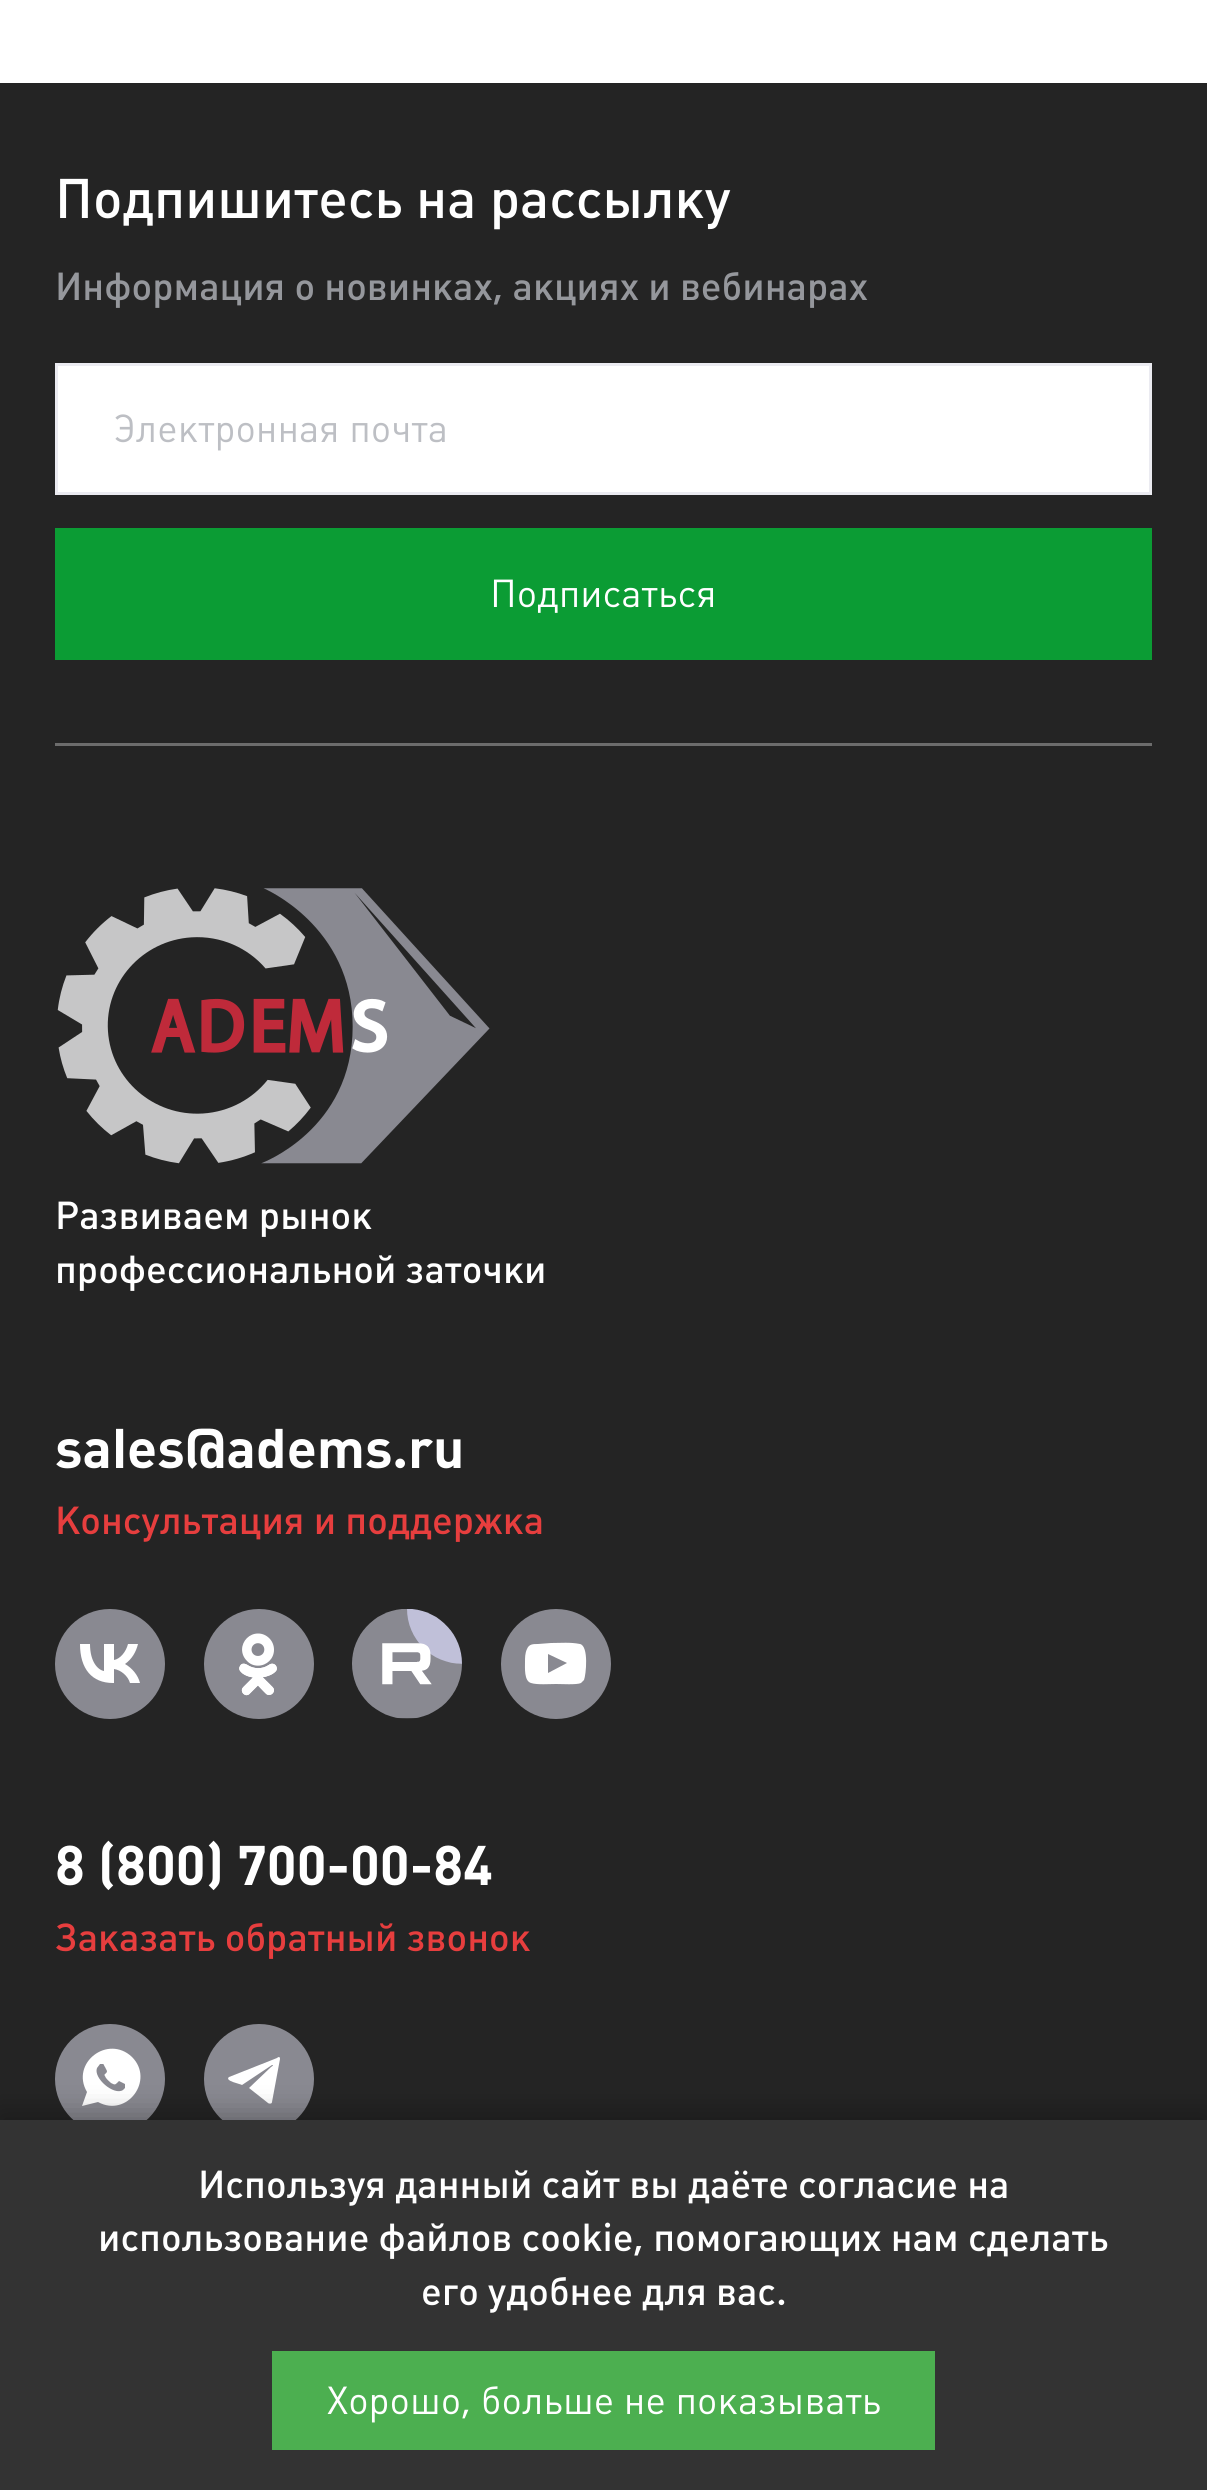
import math
import cairo

surface = cairo.ImageSurface(cairo.FORMAT_RGB24, 1207, 2490)
ctx = cairo.Context(surface)
options = cairo.FontOptions()
options.set_hint_metrics(cairo.HINT_METRICS_OFF)
options.set_hint_style(cairo.HINT_STYLE_NONE)
ctx.set_font_options(options)
ctx.set_miter_limit(4)


def round_rect(x, y, w, h, r):
    ctx.new_sub_path()
    for i, (u, v) in enumerate([(x + w - r, y + h - r), (x + r, y + h - r), (x + r, y + r), (x + w - r, y + r)]):
        ctx.arc(u, v, r, i * math.pi / 2, (i + 1) * math.pi / 2)
    ctx.close_path()


def shadow(x, y, w, h, r, blur, alpha):
    ctx.push_group_with_content(cairo.CONTENT_ALPHA)
    ctx.set_operator(cairo.OPERATOR_SOURCE)
    for i in range(15, -16, -2):
        e = blur * i / 6
        if min(w, h) + 2 * e > 0:
            ctx.set_source_rgba(0, 0, 0, alpha * math.erfc((i - 1) / 8.5) / 2)
            round_rect(x - e, y - e, w + 2 * e, h + 2 * e, max(0, min(r + e + blur * .6, min(w, h) / 2 + e)))
            ctx.fill()
    ctx.mask(ctx.pop_group())


def picture(path, x, y, w, h):
    ctx.save()
    ctx.set_source_surface(cairo.ImageSurface.create_from_png(path), x, y)
    ctx.rectangle(x, y, w, h)
    ctx.fill()
    ctx.restore()


ctx.set_source_rgb(1, 1, 1)
ctx.paint()
ctx.set_source_rgb(0.141, 0.141, 0.141)
ctx.rectangle(0, 83, 1207, 2037)
ctx.fill()
ctx.set_source_rgb(0.424, 0.424, 0.424)
ctx.rectangle(55, 743, 1097, 3)
ctx.fill()
ctx.select_font_face("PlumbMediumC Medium")
ctx.set_font_size(55)
ctx.set_source_rgb(1, 1, 1)
ctx.move_to(55, 218)
ctx.show_text("Подпишитесь на рассылку")
ctx.set_font_size(38.5)
ctx.set_source_rgb(0.584, 0.592, 0.612)
ctx.move_to(55, 300)
ctx.show_text("Информация о новинках, акциях и вебинарах")
ctx.set_source_rgb(1, 1, 1)
ctx.rectangle(56.5, 364.5, 1094, 129)
ctx.fill_preserve()
ctx.set_source_rgb(0.918, 0.918, 0.945)
ctx.set_line_width(3)
ctx.stroke()
ctx.select_font_face("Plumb")
ctx.set_source_rgb(0.741, 0.749, 0.769)
ctx.move_to(113, 442)
ctx.show_text("Электронная почта")
ctx.set_source_rgb(0.043, 0.612, 0.204)
ctx.rectangle(55, 528, 1097, 132)
ctx.fill()
ctx.set_source_rgb(1, 1, 1)
ctx.move_to(490, 607)
ctx.show_text("Подписаться")
picture("img1.png", 57, 888, 433, 276)
ctx.select_font_face("PlumbMediumC Medium")
ctx.move_to(55, 1229)
ctx.show_text("Развиваем рынок")
ctx.move_to(55, 1283)
ctx.show_text("профессиональной заточки")
ctx.select_font_face("Plumb", cairo.FONT_SLANT_NORMAL, cairo.FONT_WEIGHT_BOLD)
ctx.set_font_size(55)
ctx.move_to(55, 1468)
ctx.show_text("sales@adems.ru")
ctx.select_font_face("PlumbMediumC Medium")
ctx.set_font_size(38.5)
ctx.set_source_rgb(0.906, 0.243, 0.243)
ctx.move_to(55, 1534)
ctx.show_text("Консультация и поддержка")
ctx.set_source_rgb(0.537, 0.537, 0.569)
ctx.new_path()
ctx.arc(110, 1664, 55, 0, 2 * math.pi)
ctx.fill()
ctx.set_source_rgb(1, 1, 1)
ctx.new_path()
ctx.move_to(113, 1683)
ctx.curve_to(92, 1683, 80, 1669, 80, 1644)
ctx.line_to(90, 1644)
ctx.curve_to(90, 1662, 98, 1670, 104, 1671)
ctx.line_to(104, 1644)
ctx.line_to(114, 1644)
ctx.line_to(114, 1660)
ctx.curve_to(120, 1659, 126, 1652, 128, 1644)
ctx.line_to(138, 1644)
ctx.curve_to(136, 1652, 132, 1659, 125, 1664)
ctx.curve_to(132, 1668, 138, 1675, 140, 1683)
ctx.line_to(130, 1683)
ctx.curve_to(128, 1676, 121, 1670, 114, 1669)
ctx.line_to(114, 1683)
ctx.close_path()
ctx.fill()
picture("img2.png", 204, 1609, 110, 110)
picture("img3.png", 352, 1609, 110, 110)
ctx.set_source_rgb(0.537, 0.537, 0.569)
ctx.arc(556, 1664, 55, 0, 2 * math.pi)
ctx.fill()
ctx.set_source_rgb(1, 1, 1)
ctx.set_fill_rule(cairo.FILL_RULE_EVEN_ODD)
ctx.new_path()
ctx.move_to(531, 1683)
ctx.curve_to(524, 1681, 525, 1668, 525, 1662)
ctx.curve_to(525, 1658, 525, 1653, 527, 1649)
ctx.curve_to(529, 1644, 533, 1644, 538, 1644)
ctx.line_to(551, 1643)
ctx.curve_to(561, 1643, 570, 1642, 580, 1644)
ctx.curve_to(589, 1646, 586, 1675, 584, 1680)
ctx.line_to(581, 1683)
ctx.curve_to(577, 1685, 561, 1684, 556, 1684)
ctx.curve_to(550, 1684, 537, 1685, 531, 1683)
ctx.close_path()
ctx.move_to(548, 1673)
ctx.line_to(567, 1663)
ctx.line_to(548, 1654)
ctx.close_path()
ctx.fill()
ctx.select_font_face("Plumb", cairo.FONT_SLANT_NORMAL, cairo.FONT_WEIGHT_BOLD)
ctx.set_font_size(55)
ctx.move_to(55, 1885)
ctx.show_text("8 (800) 700-00-84")
ctx.select_font_face("PlumbMediumC Medium")
ctx.set_font_size(38.5)
ctx.set_source_rgb(0.906, 0.243, 0.243)
ctx.move_to(55, 1951)
ctx.show_text("Заказать обратный звонок")
ctx.set_source_rgb(0.537, 0.537, 0.569)
ctx.new_path()
ctx.arc(110, 2079, 55, 0, 2 * math.pi)
ctx.fill()
ctx.set_source_rgb(1, 1, 1)
ctx.set_fill_rule(cairo.FILL_RULE_WINDING)
ctx.new_path()
ctx.move_to(132, 2057)
ctx.curve_to(108, 2034, 70, 2063, 87, 2092)
ctx.line_to(82, 2106)
ctx.line_to(98, 2102)
ctx.curve_to(127, 2118, 155, 2080, 132, 2057)
ctx.close_path()
ctx.move_to(125, 2088)
ctx.line_to(123, 2090)
ctx.curve_to(114, 2096, 93, 2078, 97, 2068)
ctx.line_to(100, 2064)
ctx.line_to(103, 2064)
ctx.curve_to(104, 2064, 104, 2066, 105, 2067)
ctx.line_to(107, 2071)
ctx.curve_to(107, 2074, 103, 2074, 105, 2076)
ctx.curve_to(106, 2079, 109, 2081, 111, 2083)
ctx.curve_to(115, 2085, 115, 2085, 118, 2082)
ctx.line_to(119, 2081)
ctx.line_to(125, 2084)
ctx.close_path()
ctx.fill()
ctx.set_source_rgb(0.537, 0.537, 0.569)
ctx.arc(259, 2079, 55, 0, 2 * math.pi)
ctx.fill()
ctx.set_source_rgb(1, 1, 1)
ctx.new_path()
ctx.move_to(280, 2059)
ctx.line_to(272, 2102)
ctx.curve_to(272, 2104, 269, 2104, 268, 2103)
ctx.line_to(249, 2088)
ctx.line_to(271, 2067)
ctx.curve_to(271, 2067, 273, 2066, 273, 2065)
ctx.line_to(272, 2065)
ctx.line_to(242, 2085)
ctx.curve_to(241, 2084, 224, 2081, 229, 2077)
ctx.line_to(277, 2058)
ctx.curve_to(278, 2057, 280, 2056, 280, 2059)
ctx.close_path()
ctx.fill()
ctx.set_source_rgb(0, 0, 0)
shadow(0, 2115, 1207, 371, 0, 14, 0.3)
ctx.set_source_rgb(0.2, 0.2, 0.2)
ctx.rectangle(0, 2120, 1207, 370)
ctx.fill()
ctx.set_source_rgb(1, 1, 1)
ctx.move_to(198, 2198)
ctx.show_text("Используя данный сайт вы даёте согласие на")
ctx.move_to(98, 2251)
ctx.show_text("использование файлов cookie, помогающих нам сделать")
ctx.move_to(421, 2305)
ctx.show_text("его удобнее для вас.")
ctx.set_source_rgb(0.298, 0.686, 0.314)
ctx.rectangle(272, 2351, 663, 99)
ctx.fill()
ctx.select_font_face("Plumb")
ctx.set_source_rgb(1, 1, 1)
ctx.move_to(327, 2414)
ctx.show_text("Хорошо, больше не показывать")
surface.write_to_png("page.png")
